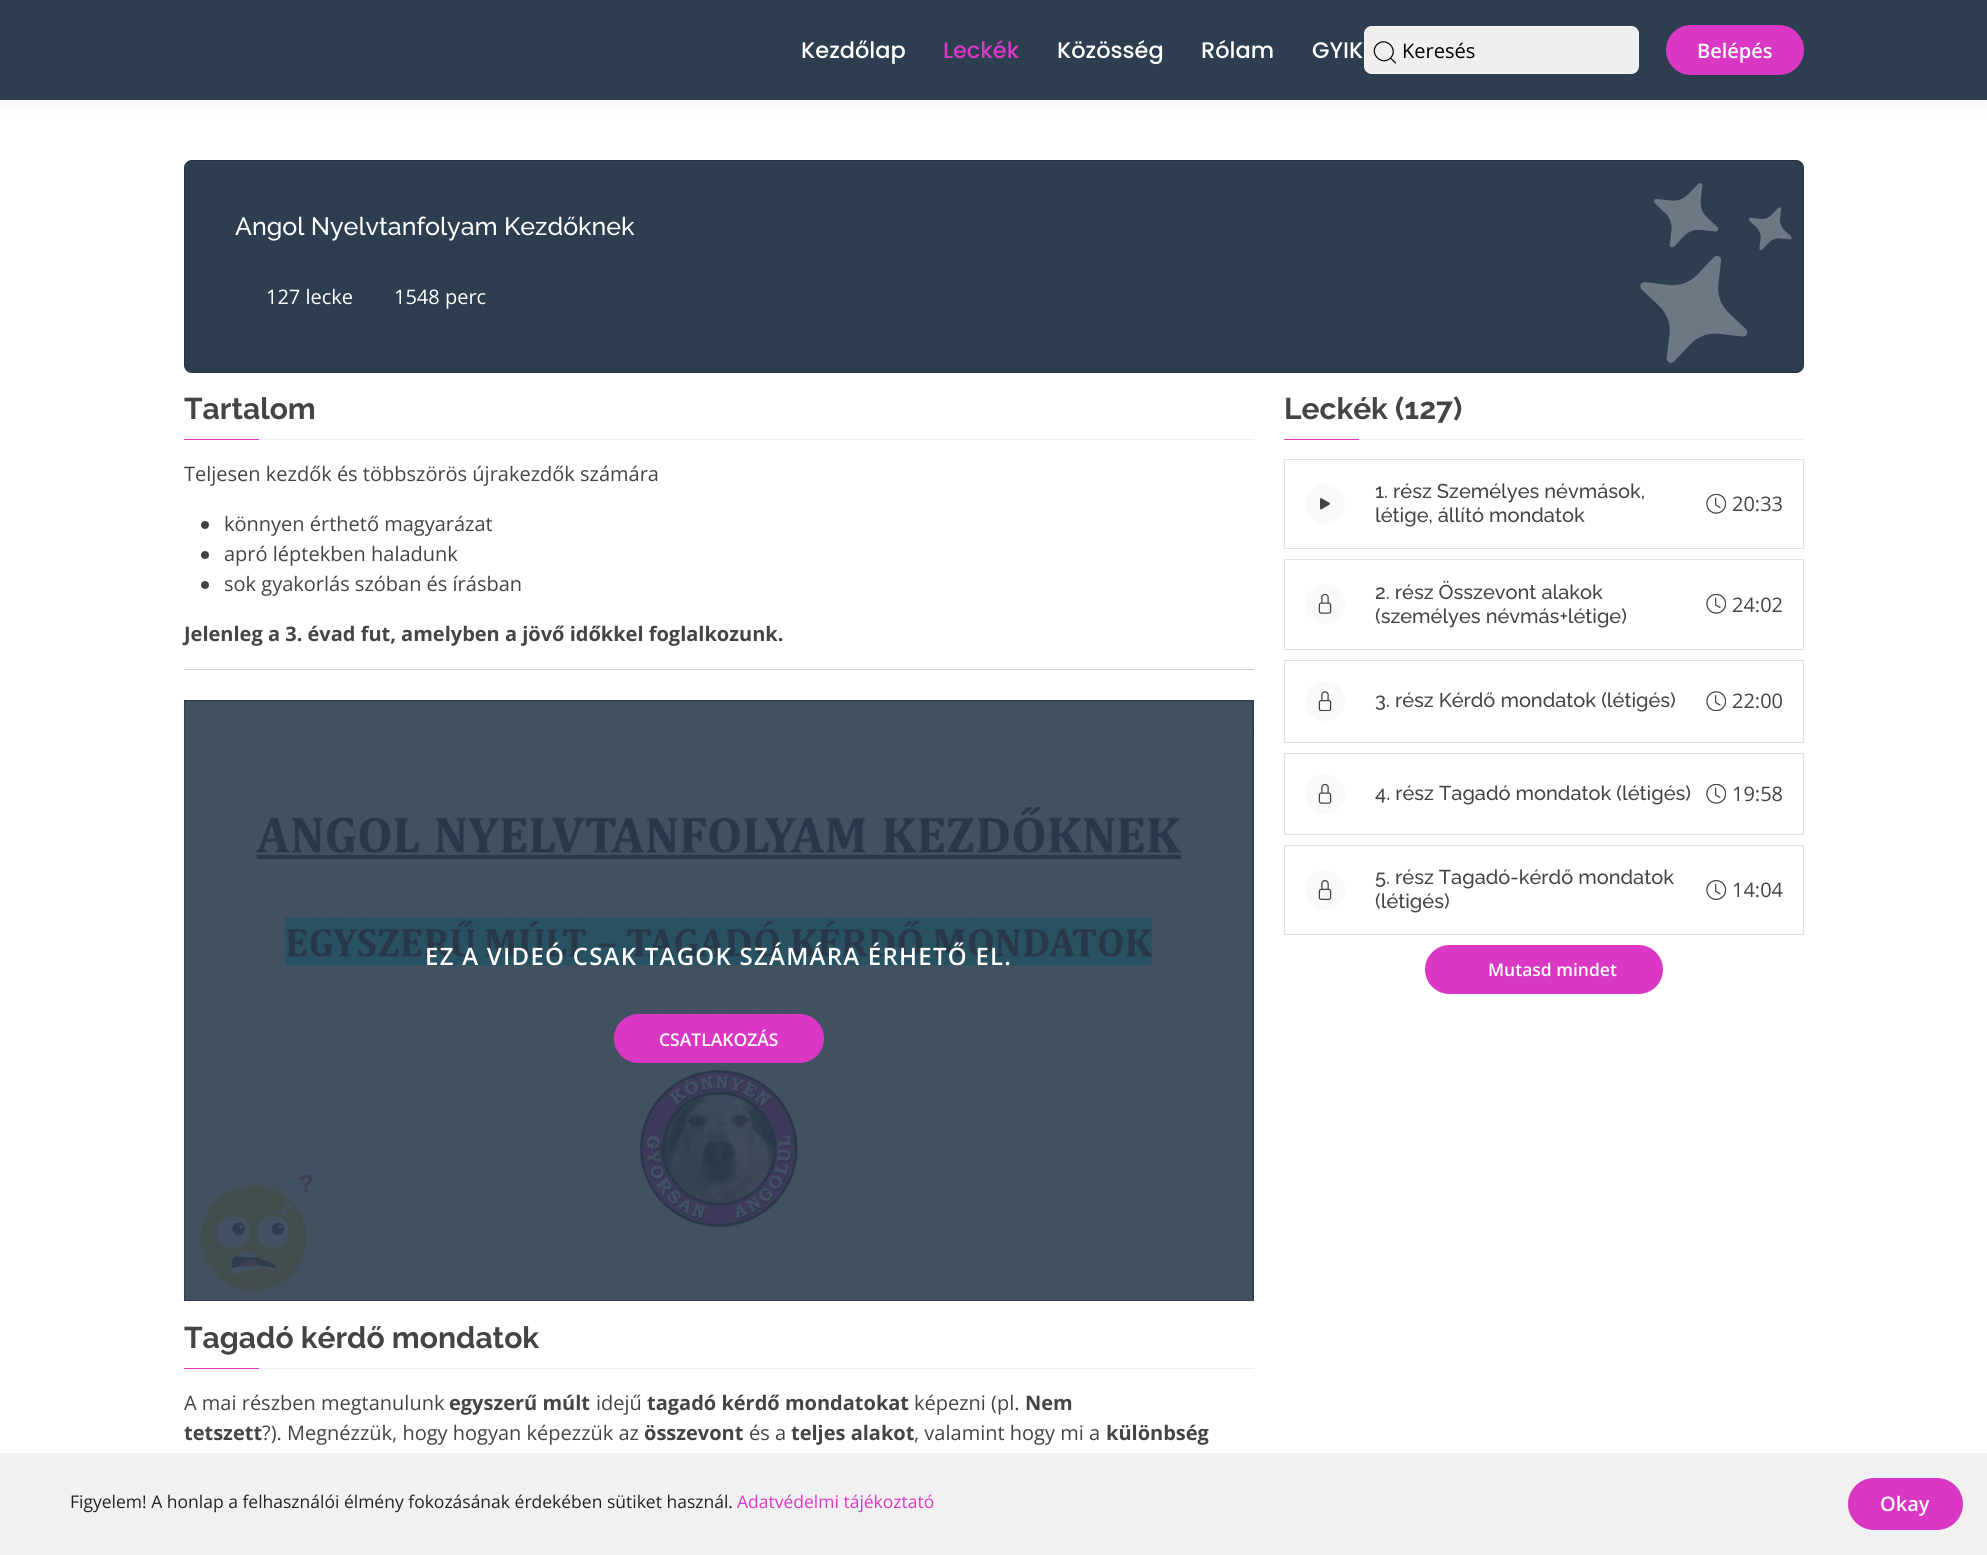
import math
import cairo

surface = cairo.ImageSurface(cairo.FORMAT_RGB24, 1987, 1555)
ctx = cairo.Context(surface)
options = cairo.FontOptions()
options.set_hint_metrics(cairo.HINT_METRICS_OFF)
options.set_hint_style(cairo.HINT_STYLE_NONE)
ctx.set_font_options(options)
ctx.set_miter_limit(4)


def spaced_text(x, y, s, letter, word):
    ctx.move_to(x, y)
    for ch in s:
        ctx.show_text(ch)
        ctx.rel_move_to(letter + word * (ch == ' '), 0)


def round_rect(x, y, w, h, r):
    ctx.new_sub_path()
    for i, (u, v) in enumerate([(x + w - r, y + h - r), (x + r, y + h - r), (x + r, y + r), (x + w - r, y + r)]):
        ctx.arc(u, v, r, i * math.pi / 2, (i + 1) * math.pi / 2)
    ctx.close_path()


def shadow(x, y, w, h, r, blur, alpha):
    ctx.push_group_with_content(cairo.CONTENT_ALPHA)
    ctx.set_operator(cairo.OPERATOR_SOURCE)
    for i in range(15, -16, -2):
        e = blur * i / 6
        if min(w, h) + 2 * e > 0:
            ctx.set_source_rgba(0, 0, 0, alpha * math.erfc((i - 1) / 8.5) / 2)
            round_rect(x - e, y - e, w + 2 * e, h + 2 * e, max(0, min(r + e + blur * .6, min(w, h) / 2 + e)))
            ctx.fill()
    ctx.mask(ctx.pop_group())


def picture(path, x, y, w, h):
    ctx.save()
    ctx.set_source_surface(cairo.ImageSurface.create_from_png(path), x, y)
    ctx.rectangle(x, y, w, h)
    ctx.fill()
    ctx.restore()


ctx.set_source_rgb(1, 1, 1)
ctx.paint()
ctx.set_source_rgb(0.216, 0.259, 0.231)
shadow(0, 0, 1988, 100, 0, 11, 0.08)
ctx.set_source_rgb(0.176, 0.243, 0.314)
ctx.rectangle(0, 0, 1987, 100)
ctx.fill()
ctx.select_font_face("Poppins Medium")
ctx.set_font_size(22.5)
ctx.set_source_rgb(1, 1, 1)
ctx.move_to(801, 58)
ctx.show_text("Kezdőlap")
ctx.set_source_rgb(0.859, 0.216, 0.773)
ctx.move_to(943, 58)
ctx.show_text("Leckék")
ctx.set_source_rgb(1, 1, 1)
ctx.move_to(1057, 58)
ctx.show_text("Közösség")
ctx.move_to(1201, 58)
ctx.show_text("Rólam")
ctx.move_to(1312, 58)
ctx.show_text("GYIK")
ctx.set_source_rgb(0.937, 0.937, 0.937)
round_rect(1364, 26, 275, 48, 8)
ctx.fill()
round_rect(1364.5, 26.5, 274, 47, 7.5)
ctx.set_source_rgba(1, 1, 1, 0.4)
ctx.set_line_width(1)
ctx.stroke()
ctx.new_path()
ctx.move_to(1390.5, 58)
ctx.line_to(1395.5, 63)
ctx.line_to(1390.5, 58)
ctx.curve_to(1382, 66.5, 1368.5, 53.5, 1377, 44.5)
ctx.curve_to(1386, 36, 1399, 49.5, 1390.5, 58)
ctx.close_path()
ctx.set_source_rgb(0, 0, 0)
ctx.set_line_width(1.2)
ctx.set_line_cap(cairo.LINE_CAP_ROUND)
ctx.set_line_join(cairo.LINE_JOIN_ROUND)
ctx.stroke()
ctx.select_font_face("Open Sans")
ctx.set_font_size(20)
ctx.move_to(1402, 58)
ctx.show_text("Keresés")
ctx.set_source_rgb(0.859, 0.216, 0.773)
round_rect(1666, 25, 138, 50, 25)
ctx.fill()
ctx.select_font_face("Open Sans SemiBold")
ctx.set_source_rgb(1, 1, 1)
ctx.move_to(1697, 58)
ctx.show_text("Belépés")
ctx.set_source_rgb(0.176, 0.243, 0.314)
round_rect(184, 160, 1620, 213, 8)
ctx.fill()
round_rect(184.5, 160.5, 1619, 212, 7.5)
ctx.set_source_rgba(0, 0, 0, 0.18)
ctx.set_line_width(1)
ctx.set_line_cap(cairo.LINE_CAP_BUTT)
ctx.set_line_join(cairo.LINE_JOIN_MITER)
ctx.stroke()
ctx.select_font_face("Raleway Medium")
ctx.set_font_size(25)
ctx.set_source_rgb(1, 1, 1)
ctx.move_to(235, 235)
ctx.show_text("Angol Nyelvtanfolyam Kezdőknek")
picture("img1.png", 1640, 183, 152, 180)
ctx.select_font_face("Open Sans")
ctx.set_font_size(20)
ctx.move_to(266, 304)
ctx.show_text("127 lecke")
ctx.move_to(394, 304)
ctx.show_text("1548 perc")
ctx.select_font_face("Raleway", cairo.FONT_SLANT_NORMAL, cairo.FONT_WEIGHT_BOLD)
ctx.set_font_size(30)
ctx.set_source_rgb(0.267, 0.267, 0.267)
ctx.move_to(184, 419)
ctx.show_text("Tartalom")
ctx.set_source_rgb(0.859, 0.216, 0.773)
ctx.rectangle(184, 439, 75, 1)
ctx.fill()
ctx.set_source_rgb(0.933, 0.941, 0.937)
ctx.rectangle(259, 439, 995, 1)
ctx.fill()
ctx.select_font_face("Open Sans")
ctx.set_font_size(20)
ctx.set_source_rgb(0.267, 0.267, 0.267)
ctx.move_to(184, 481)
ctx.show_text("Teljesen kezdők és többszörös újrakezdők számára")
ctx.new_path()
ctx.arc(205, 525, 4, 0, 2 * math.pi)
ctx.fill()
ctx.move_to(224, 531)
ctx.show_text("könnyen érthető magyarázat")
ctx.new_path()
ctx.arc(205, 555, 4, 0, 2 * math.pi)
ctx.fill()
ctx.move_to(224, 561)
ctx.show_text("apró léptekben haladunk")
ctx.new_path()
ctx.arc(205, 585, 4, 0, 2 * math.pi)
ctx.fill()
ctx.move_to(224, 591)
ctx.show_text("sok gyakorlás szóban és írásban")
ctx.select_font_face("Open Sans", cairo.FONT_SLANT_NORMAL, cairo.FONT_WEIGHT_BOLD)
ctx.move_to(184, 641)
ctx.show_text("Jelenleg a 3. évad fut, amelyben a jövő időkkel foglalkozunk.")
ctx.set_source_rgb(0.816, 0.816, 0.816)
ctx.rectangle(184, 669, 1070, 1)
ctx.fill()
ctx.set_source_rgb(0.176, 0.243, 0.314)
ctx.rectangle(184, 700, 1070, 601)
ctx.fill()
picture("img2.png", 183, 700, 1071, 602)
ctx.select_font_face("Open Sans SemiBold")
ctx.set_font_size(24)
ctx.set_source_rgb(1, 1, 1)
spaced_text(425, 965, "EZ A VIDEÓ CSAK TAGOK SZÁMÁRA ÉRHETŐ EL.", 1.25, 0)
ctx.set_source_rgb(0.859, 0.216, 0.773)
round_rect(614, 1014, 210, 49, 24.5)
ctx.fill()
ctx.set_font_size(17.5)
ctx.set_source_rgb(1, 1, 1)
ctx.move_to(659, 1046)
ctx.show_text("CSATLAKOZÁS")
ctx.select_font_face("Raleway", cairo.FONT_SLANT_NORMAL, cairo.FONT_WEIGHT_BOLD)
ctx.set_font_size(30)
ctx.set_source_rgb(0.267, 0.267, 0.267)
ctx.move_to(184, 1348)
ctx.show_text("Tagadó kérdő mondatok")
ctx.set_source_rgb(0.859, 0.216, 0.773)
ctx.rectangle(184, 1368, 75, 1)
ctx.fill()
ctx.set_source_rgb(0.933, 0.941, 0.937)
ctx.rectangle(259, 1368, 995, 1)
ctx.fill()
ctx.select_font_face("Open Sans")
ctx.set_font_size(20)
ctx.set_source_rgb(0.267, 0.267, 0.267)
ctx.move_to(184, 1410)
ctx.show_text("A mai részben megtanulunk")
ctx.select_font_face("Open Sans", cairo.FONT_SLANT_NORMAL, cairo.FONT_WEIGHT_BOLD)
ctx.move_to(449, 1410)
ctx.show_text("egyszerű múlt")
ctx.select_font_face("Open Sans")
ctx.move_to(596, 1410)
ctx.show_text("idejű")
ctx.select_font_face("Open Sans", cairo.FONT_SLANT_NORMAL, cairo.FONT_WEIGHT_BOLD)
ctx.move_to(647, 1410)
ctx.show_text("tagadó kérdő mondatokat")
ctx.select_font_face("Open Sans")
ctx.move_to(914, 1410)
ctx.show_text("képezni (pl.")
ctx.select_font_face("Open Sans", cairo.FONT_SLANT_NORMAL, cairo.FONT_WEIGHT_BOLD)
ctx.move_to(1025, 1410)
ctx.show_text("Nem")
ctx.move_to(184, 1440)
ctx.show_text("tetszett")
ctx.select_font_face("Open Sans")
ctx.move_to(262, 1440)
ctx.show_text("?). Megnézzük, hogy hogyan képezzük az")
ctx.select_font_face("Open Sans", cairo.FONT_SLANT_NORMAL, cairo.FONT_WEIGHT_BOLD)
ctx.move_to(644, 1440)
ctx.show_text("összevont")
ctx.select_font_face("Open Sans")
ctx.move_to(749, 1440)
ctx.show_text("és a")
ctx.select_font_face("Open Sans", cairo.FONT_SLANT_NORMAL, cairo.FONT_WEIGHT_BOLD)
ctx.move_to(791, 1440)
ctx.show_text("teljes alakot")
ctx.select_font_face("Open Sans")
ctx.move_to(914, 1440)
ctx.show_text(", valamint hogy mi a")
ctx.select_font_face("Open Sans", cairo.FONT_SLANT_NORMAL, cairo.FONT_WEIGHT_BOLD)
ctx.move_to(1106, 1440)
ctx.show_text("különbség")
ctx.select_font_face("Raleway", cairo.FONT_SLANT_NORMAL, cairo.FONT_WEIGHT_BOLD)
ctx.set_font_size(30)
ctx.move_to(1284, 419)
ctx.show_text("Leckék (127)")
ctx.set_source_rgb(0.859, 0.216, 0.773)
ctx.rectangle(1284, 439, 75, 1)
ctx.fill()
ctx.set_source_rgb(0.933, 0.941, 0.937)
ctx.rectangle(1359, 439, 445, 1)
ctx.fill()
ctx.rectangle(1284.5, 459.5, 519, 89)
ctx.set_source_rgb(0.871, 0.886, 0.902)
ctx.stroke()
ctx.set_source_rgb(0.973, 0.976, 0.98)
ctx.arc(1325, 504, 20, 0, 2 * math.pi)
ctx.fill()
picture("img3.png", 1320, 498, 10, 12)
ctx.select_font_face("Raleway Medium")
ctx.set_font_size(20)
ctx.set_source_rgb(0.267, 0.267, 0.267)
ctx.move_to(1375, 498)
ctx.show_text("1. rész Személyes névmások,")
ctx.move_to(1375, 522)
ctx.show_text("létige, állító mondatok")
picture("img4.png", 1706, 494, 20, 20)
ctx.select_font_face("Open Sans")
ctx.move_to(1732, 511)
ctx.show_text("20:33")
ctx.rectangle(1284.5, 559.5, 519, 90)
ctx.set_source_rgb(0.871, 0.886, 0.902)
ctx.stroke()
ctx.set_source_rgb(0.973, 0.976, 0.98)
ctx.arc(1325, 604, 20, 0, 2 * math.pi)
ctx.fill()
picture("img5.png", 1318, 594, 14, 20)
ctx.select_font_face("Raleway Medium")
ctx.set_source_rgb(0.267, 0.267, 0.267)
ctx.move_to(1375, 599)
ctx.show_text("2. rész Összevont alakok")
ctx.move_to(1375, 623)
ctx.show_text("(személyes névmás+létige)")
picture("img4.png", 1706, 594, 20, 20)
ctx.select_font_face("Open Sans")
ctx.move_to(1732, 612)
ctx.show_text("24:02")
ctx.rectangle(1284.5, 660.5, 519, 82)
ctx.set_source_rgb(0.871, 0.886, 0.902)
ctx.stroke()
ctx.set_source_rgb(0.973, 0.976, 0.98)
ctx.arc(1325, 701, 20, 0, 2 * math.pi)
ctx.fill()
picture("img6.png", 1318, 691, 14, 20)
ctx.select_font_face("Raleway Medium")
ctx.set_source_rgb(0.267, 0.267, 0.267)
ctx.move_to(1375, 707)
ctx.show_text("3. rész Kérdő mondatok (létigés)")
picture("img7.png", 1706, 691, 20, 20)
ctx.select_font_face("Open Sans")
ctx.move_to(1732, 708)
ctx.show_text("22:00")
ctx.rectangle(1284.5, 753.5, 519, 81)
ctx.set_source_rgb(0.871, 0.886, 0.902)
ctx.stroke()
ctx.set_source_rgb(0.973, 0.976, 0.98)
ctx.arc(1325, 794, 20, 0, 2 * math.pi)
ctx.fill()
picture("img5.png", 1318, 784, 14, 20)
ctx.select_font_face("Raleway Medium")
ctx.set_source_rgb(0.267, 0.267, 0.267)
ctx.move_to(1375, 800)
ctx.show_text("4. rész Tagadó mondatok (létigés)")
picture("img4.png", 1706, 784, 20, 20)
ctx.select_font_face("Open Sans")
ctx.move_to(1732, 801)
ctx.show_text("19:58")
ctx.rectangle(1284.5, 845.5, 519, 89)
ctx.set_source_rgb(0.871, 0.886, 0.902)
ctx.stroke()
ctx.set_source_rgb(0.973, 0.976, 0.98)
ctx.arc(1325, 890, 20, 0, 2 * math.pi)
ctx.fill()
picture("img8.png", 1318, 880, 14, 20)
ctx.select_font_face("Raleway Medium")
ctx.set_source_rgb(0.267, 0.267, 0.267)
ctx.move_to(1375, 884)
ctx.show_text("5. rész Tagadó-kérdő mondatok")
ctx.move_to(1375, 908)
ctx.show_text("(létigés)")
picture("img9.png", 1706, 880, 20, 20)
ctx.select_font_face("Open Sans")
ctx.move_to(1732, 897)
ctx.show_text("14:04")
ctx.set_source_rgb(0.859, 0.216, 0.773)
round_rect(1425, 945, 238, 49, 24.5)
ctx.fill()
ctx.select_font_face("Open Sans SemiBold")
ctx.set_font_size(17.5)
ctx.set_source_rgb(1, 1, 1)
ctx.move_to(1488, 976)
ctx.show_text("Mutasd mindet")
ctx.set_source_rgb(0.945, 0.945, 0.945)
ctx.rectangle(0, 1453, 1987, 102)
ctx.fill()
ctx.select_font_face("Open Sans")
ctx.set_source_rgb(0.137, 0.137, 0.137)
ctx.move_to(70, 1508)
ctx.show_text("Figyelem! A honlap a felhasználói élmény fokozásának érdekében sütiket használ.")
ctx.set_source_rgb(0.859, 0.216, 0.773)
ctx.move_to(737, 1508)
ctx.show_text("Adatvédelmi tájékoztató")
round_rect(1848, 1478, 115, 52, 26)
ctx.fill()
ctx.select_font_face("Open Sans SemiBold")
ctx.set_font_size(20)
ctx.set_source_rgb(1, 1, 1)
ctx.move_to(1880, 1511)
ctx.show_text("Okay")
surface.write_to_png("page.png")
